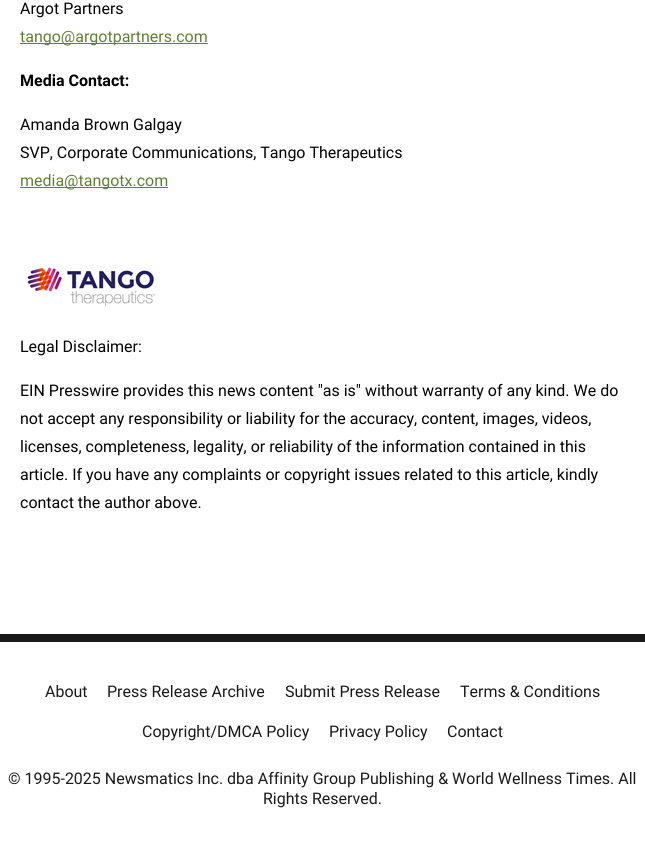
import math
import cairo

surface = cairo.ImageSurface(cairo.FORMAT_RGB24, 645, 849)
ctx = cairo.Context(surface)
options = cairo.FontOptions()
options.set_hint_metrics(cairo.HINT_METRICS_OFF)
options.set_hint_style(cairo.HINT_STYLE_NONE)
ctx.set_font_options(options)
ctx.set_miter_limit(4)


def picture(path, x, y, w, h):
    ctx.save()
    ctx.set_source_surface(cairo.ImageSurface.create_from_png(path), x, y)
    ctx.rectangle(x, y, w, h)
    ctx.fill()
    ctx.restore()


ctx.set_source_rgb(1, 1, 1)
ctx.paint()
ctx.select_font_face("Roboto")
ctx.set_font_size(16)
ctx.set_source_rgb(0, 0, 0)
ctx.move_to(20, 14)
ctx.show_text("Argot Partners")
ctx.set_source_rgb(0.373, 0.502, 0.196)
ctx.rectangle(20, 43, 188, 1)
ctx.fill()
ctx.move_to(20, 42)
ctx.show_text("tango@argotpartners.com")
ctx.select_font_face("Roboto", cairo.FONT_SLANT_NORMAL, cairo.FONT_WEIGHT_BOLD)
ctx.set_source_rgb(0, 0, 0)
ctx.move_to(20, 86)
ctx.show_text("Media Contact:")
ctx.select_font_face("Roboto")
ctx.move_to(20, 130)
ctx.show_text("Amanda Brown Galgay")
ctx.move_to(20, 158)
ctx.show_text("SVP, Corporate Communications, Tango Therapeutics")
ctx.set_source_rgb(0.373, 0.502, 0.196)
ctx.rectangle(20, 187, 148, 1)
ctx.fill()
ctx.move_to(20, 186)
ctx.show_text("media@tangotx.com")
picture("img1.png", 27, 267, 129, 40)
ctx.set_source_rgb(0, 0, 0)
ctx.move_to(20, 352)
ctx.show_text("Legal Disclaimer:")
ctx.move_to(20, 396)
ctx.show_text("EIN Presswire provides this news content \"as is\" without warranty of any kind. We do")
ctx.move_to(20, 424)
ctx.show_text("not accept any responsibility or liability for the accuracy, content, images, videos,")
ctx.move_to(20, 452)
ctx.show_text("licenses, completeness, legality, or reliability of the information contained in this")
ctx.move_to(20, 480)
ctx.show_text("article. If you have any complaints or copyright issues related to this article, kindly")
ctx.move_to(20, 508)
ctx.show_text("contact the author above.")
ctx.set_source_rgb(0.098, 0.098, 0.098)
ctx.rectangle(0, 634, 645, 8)
ctx.fill()
ctx.move_to(45, 697)
ctx.show_text("About")
ctx.move_to(107, 697)
ctx.show_text("Press Release Archive")
ctx.move_to(285, 697)
ctx.show_text("Submit Press Release")
ctx.move_to(460, 697)
ctx.show_text("Terms & Conditions")
ctx.move_to(142, 737)
ctx.show_text("Copyright/DMCA Policy")
ctx.move_to(329, 737)
ctx.show_text("Privacy Policy")
ctx.move_to(447, 737)
ctx.show_text("Contact")
ctx.move_to(8, 784)
ctx.show_text("© 1995-2025 Newsmatics Inc. dba Affinity Group Publishing & World Wellness Times. All")
ctx.move_to(263, 804)
ctx.show_text("Rights Reserved.")
surface.write_to_png("page.png")
